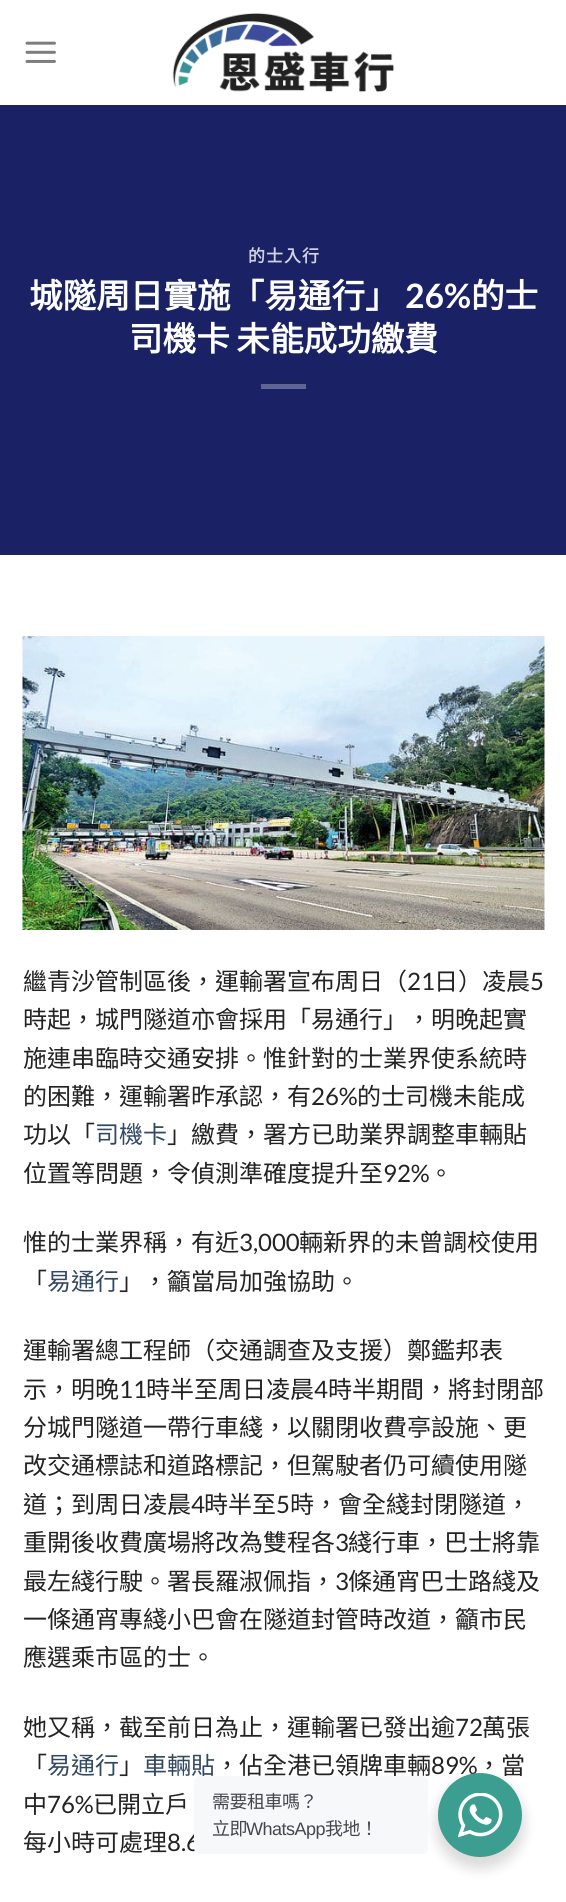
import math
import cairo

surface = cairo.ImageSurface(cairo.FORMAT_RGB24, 566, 1902)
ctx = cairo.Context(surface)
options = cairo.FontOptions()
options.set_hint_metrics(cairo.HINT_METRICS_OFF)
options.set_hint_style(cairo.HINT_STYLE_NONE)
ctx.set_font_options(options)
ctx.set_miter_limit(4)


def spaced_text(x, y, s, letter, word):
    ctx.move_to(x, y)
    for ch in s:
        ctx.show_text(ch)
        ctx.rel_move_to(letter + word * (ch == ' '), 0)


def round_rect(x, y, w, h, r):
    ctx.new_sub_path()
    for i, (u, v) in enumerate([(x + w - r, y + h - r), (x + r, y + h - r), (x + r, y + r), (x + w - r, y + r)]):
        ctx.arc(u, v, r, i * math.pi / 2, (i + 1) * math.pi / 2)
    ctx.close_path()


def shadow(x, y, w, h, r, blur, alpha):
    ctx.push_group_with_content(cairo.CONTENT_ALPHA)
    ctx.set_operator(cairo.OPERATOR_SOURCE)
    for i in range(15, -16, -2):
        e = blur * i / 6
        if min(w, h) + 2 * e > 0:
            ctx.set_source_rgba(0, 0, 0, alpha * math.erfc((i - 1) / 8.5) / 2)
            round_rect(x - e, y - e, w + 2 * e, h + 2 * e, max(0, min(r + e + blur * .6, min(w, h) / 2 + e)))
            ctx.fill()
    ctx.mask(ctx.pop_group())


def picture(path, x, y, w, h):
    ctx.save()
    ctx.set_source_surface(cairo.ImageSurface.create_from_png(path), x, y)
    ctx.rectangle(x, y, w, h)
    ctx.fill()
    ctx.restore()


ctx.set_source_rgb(1, 1, 1)
ctx.paint()
picture("img1.png", 25, 41, 31, 22)
picture("img2.png", 172, 13, 223, 80)
ctx.set_source_rgb(0.102, 0.133, 0.396)
ctx.rectangle(0, 105, 566, 450)
ctx.fill()
ctx.set_source_rgb(0.106, 0.133, 0.369)
ctx.rectangle(23, 105, 522, 2)
ctx.fill()
ctx.select_font_face("Noto Sans CJK HK", cairo.FONT_SLANT_NORMAL, cairo.FONT_WEIGHT_BOLD)
ctx.set_font_size(17)
ctx.set_source_rgb(0.82, 0.827, 0.878)
spaced_text(248, 262, "的士入行", 1, 0)
ctx.set_font_size(33.6)
ctx.set_source_rgb(1, 1, 1)
ctx.move_to(29, 308)
ctx.show_text("城隧周日實施「易通行」")
ctx.select_font_face("Lato", cairo.FONT_SLANT_NORMAL, cairo.FONT_WEIGHT_BOLD)
ctx.move_to(405, 308)
ctx.show_text("26%")
ctx.select_font_face("Noto Sans CJK HK", cairo.FONT_SLANT_NORMAL, cairo.FONT_WEIGHT_BOLD)
ctx.move_to(471, 308)
ctx.show_text("的士")
spaced_text(129, 351, "司機卡 未能成功繳費", 0, -1)
ctx.set_source_rgb(0.373, 0.392, 0.576)
ctx.rectangle(261, 384, 45, 5)
ctx.fill()
picture("img3.png", 22, 636, 523, 294)
ctx.select_font_face("Noto Sans CJK HK")
ctx.set_font_size(24)
ctx.set_source_rgb(0.137, 0.137, 0.137)
ctx.move_to(23, 990)
ctx.show_text("繼青沙管制區後，運輸署宣布周日（")
ctx.select_font_face("Lato")
ctx.move_to(407, 990)
ctx.show_text("21")
ctx.select_font_face("Noto Sans CJK HK")
ctx.move_to(434, 990)
ctx.show_text("日）凌晨")
ctx.select_font_face("Lato")
ctx.move_to(530, 990)
ctx.show_text("5")
ctx.select_font_face("Noto Sans CJK HK")
ctx.move_to(23, 1028)
ctx.show_text("時起，城門隧道亦會採用「易通行」，明晚起實")
ctx.move_to(23, 1067)
ctx.show_text("施連串臨時交通安排。惟針對的士業界使系統時")
ctx.move_to(23, 1105)
ctx.show_text("的困難，運輸署昨承認，有")
ctx.select_font_face("Lato")
ctx.move_to(311, 1105)
ctx.show_text("26%")
ctx.select_font_face("Noto Sans CJK HK")
ctx.move_to(357, 1105)
ctx.show_text("的士司機未能成")
ctx.move_to(23, 1143)
ctx.show_text("功以「")
ctx.set_source_rgb(0.2, 0.282, 0.384)
ctx.move_to(95, 1143)
ctx.show_text("司機卡")
ctx.set_source_rgb(0.137, 0.137, 0.137)
ctx.move_to(167, 1143)
ctx.show_text("」繳費，署方已助業界調整車輛貼")
ctx.move_to(23, 1182)
ctx.show_text("位置等問題，令偵測準確度提升至")
ctx.select_font_face("Lato")
ctx.move_to(383, 1182)
ctx.show_text("92%")
ctx.select_font_face("Noto Sans CJK HK")
ctx.move_to(429, 1182)
ctx.show_text("。")
ctx.move_to(23, 1251)
ctx.show_text("惟的士業界稱，有近")
ctx.select_font_face("Lato")
ctx.move_to(239, 1251)
ctx.show_text("3,000")
ctx.select_font_face("Noto Sans CJK HK")
ctx.move_to(299, 1251)
ctx.show_text("輛新界的未曾調校使用")
ctx.move_to(23, 1290)
ctx.show_text("「")
ctx.set_source_rgb(0.2, 0.282, 0.384)
ctx.move_to(47, 1290)
ctx.show_text("易通行")
ctx.set_source_rgb(0.137, 0.137, 0.137)
ctx.move_to(119, 1290)
ctx.show_text("」，籲當局加強協助。")
ctx.move_to(23, 1359)
ctx.show_text("運輸署總工程師（交通調查及支援）鄭鑑邦表")
ctx.move_to(23, 1398)
ctx.show_text("示，明晚")
ctx.select_font_face("Lato")
ctx.move_to(119, 1398)
ctx.show_text("11")
ctx.select_font_face("Noto Sans CJK HK")
ctx.move_to(146, 1398)
ctx.show_text("時半至周日凌晨")
ctx.select_font_face("Lato")
ctx.move_to(314, 1398)
ctx.show_text("4")
ctx.select_font_face("Noto Sans CJK HK")
ctx.move_to(328, 1398)
ctx.show_text("時半期間，將封閉部")
ctx.move_to(23, 1436)
ctx.show_text("分城門隧道一帶行車綫，以關閉收費亭設施、更")
ctx.move_to(23, 1474)
ctx.show_text("改交通標誌和道路標記，但駕駛者仍可續使用隧")
ctx.move_to(23, 1513)
ctx.show_text("道；到周日凌晨")
ctx.select_font_face("Lato")
ctx.move_to(191, 1513)
ctx.show_text("4")
ctx.select_font_face("Noto Sans CJK HK")
ctx.move_to(204, 1513)
ctx.show_text("時半至")
ctx.select_font_face("Lato")
ctx.move_to(276, 1513)
ctx.show_text("5")
ctx.select_font_face("Noto Sans CJK HK")
ctx.move_to(290, 1513)
ctx.show_text("時，會全綫封閉隧道，")
ctx.move_to(23, 1551)
ctx.show_text("重開後收費廣場將改為雙程各")
ctx.select_font_face("Lato")
ctx.move_to(335, 1551)
ctx.show_text("3")
ctx.select_font_face("Noto Sans CJK HK")
ctx.move_to(348, 1551)
ctx.show_text("綫行車，巴士將靠")
ctx.move_to(23, 1590)
ctx.show_text("最左綫行駛。署長羅淑佩指，")
ctx.select_font_face("Lato")
ctx.move_to(335, 1590)
ctx.show_text("3")
ctx.select_font_face("Noto Sans CJK HK")
ctx.move_to(348, 1590)
ctx.show_text("條通宵巴士路綫及")
ctx.move_to(23, 1628)
ctx.show_text("一條通宵專綫小巴會在隧道封管時改道，籲市民")
ctx.move_to(23, 1666)
ctx.show_text("應選乘市區的士。")
ctx.move_to(23, 1736)
ctx.show_text("她又稱，截至前日為止，運輸署已發出逾")
ctx.select_font_face("Lato")
ctx.move_to(455, 1736)
ctx.show_text("72")
ctx.select_font_face("Noto Sans CJK HK")
ctx.move_to(482, 1736)
ctx.show_text("萬張")
ctx.move_to(23, 1774)
ctx.show_text("「")
ctx.set_source_rgb(0.2, 0.282, 0.384)
ctx.move_to(47, 1774)
ctx.show_text("易通行")
ctx.set_source_rgb(0.137, 0.137, 0.137)
ctx.move_to(119, 1774)
ctx.show_text("」")
ctx.set_source_rgb(0.2, 0.282, 0.384)
ctx.move_to(143, 1774)
ctx.show_text("車輛貼")
ctx.set_source_rgb(0.137, 0.137, 0.137)
ctx.move_to(215, 1774)
ctx.show_text("，佔全港已領牌車輛")
ctx.select_font_face("Lato")
ctx.move_to(431, 1774)
ctx.show_text("89%")
ctx.select_font_face("Noto Sans CJK HK")
ctx.move_to(477, 1774)
ctx.show_text("，當")
ctx.move_to(23, 1813)
ctx.show_text("中")
ctx.select_font_face("Lato")
ctx.move_to(47, 1813)
ctx.show_text("76%")
ctx.select_font_face("Noto Sans CJK HK")
ctx.move_to(93, 1813)
ctx.show_text("已開立戶")
ctx.move_to(23, 1851)
ctx.show_text("每小時可處理")
ctx.select_font_face("Lato")
ctx.move_to(167, 1851)
ctx.show_text("8.6")
ctx.set_source_rgb(0, 0, 0)
shadow(435, 1779, 90, 90, 45, 6, 0.14)
ctx.set_source_rgb(0.961, 0.969, 0.976)
round_rect(194, 1776, 234, 78, 6)
ctx.fill()
ctx.select_font_face("Noto Sans CJK HK")
ctx.set_font_size(18)
ctx.set_source_rgb(0.263, 0.278, 0.306)
spaced_text(212, 1808, "需要租車嗎？", -0.5, 0)
spaced_text(212, 1835, "立即", -0.5, 0)
ctx.select_font_face("Liberation Sans")
spaced_text(246, 1835, "WhatsApp", -0.5, 0)
ctx.select_font_face("Noto Sans CJK HK")
spaced_text(325, 1835, "我地！", -0.5, 0)
ctx.set_source_rgb(0.231, 0.62, 0.565)
ctx.new_path()
ctx.arc(480, 1815, 42, 0, 2 * math.pi)
ctx.fill()
picture("img4.png", 458, 1793, 45, 45)
surface.write_to_png("page.png")
